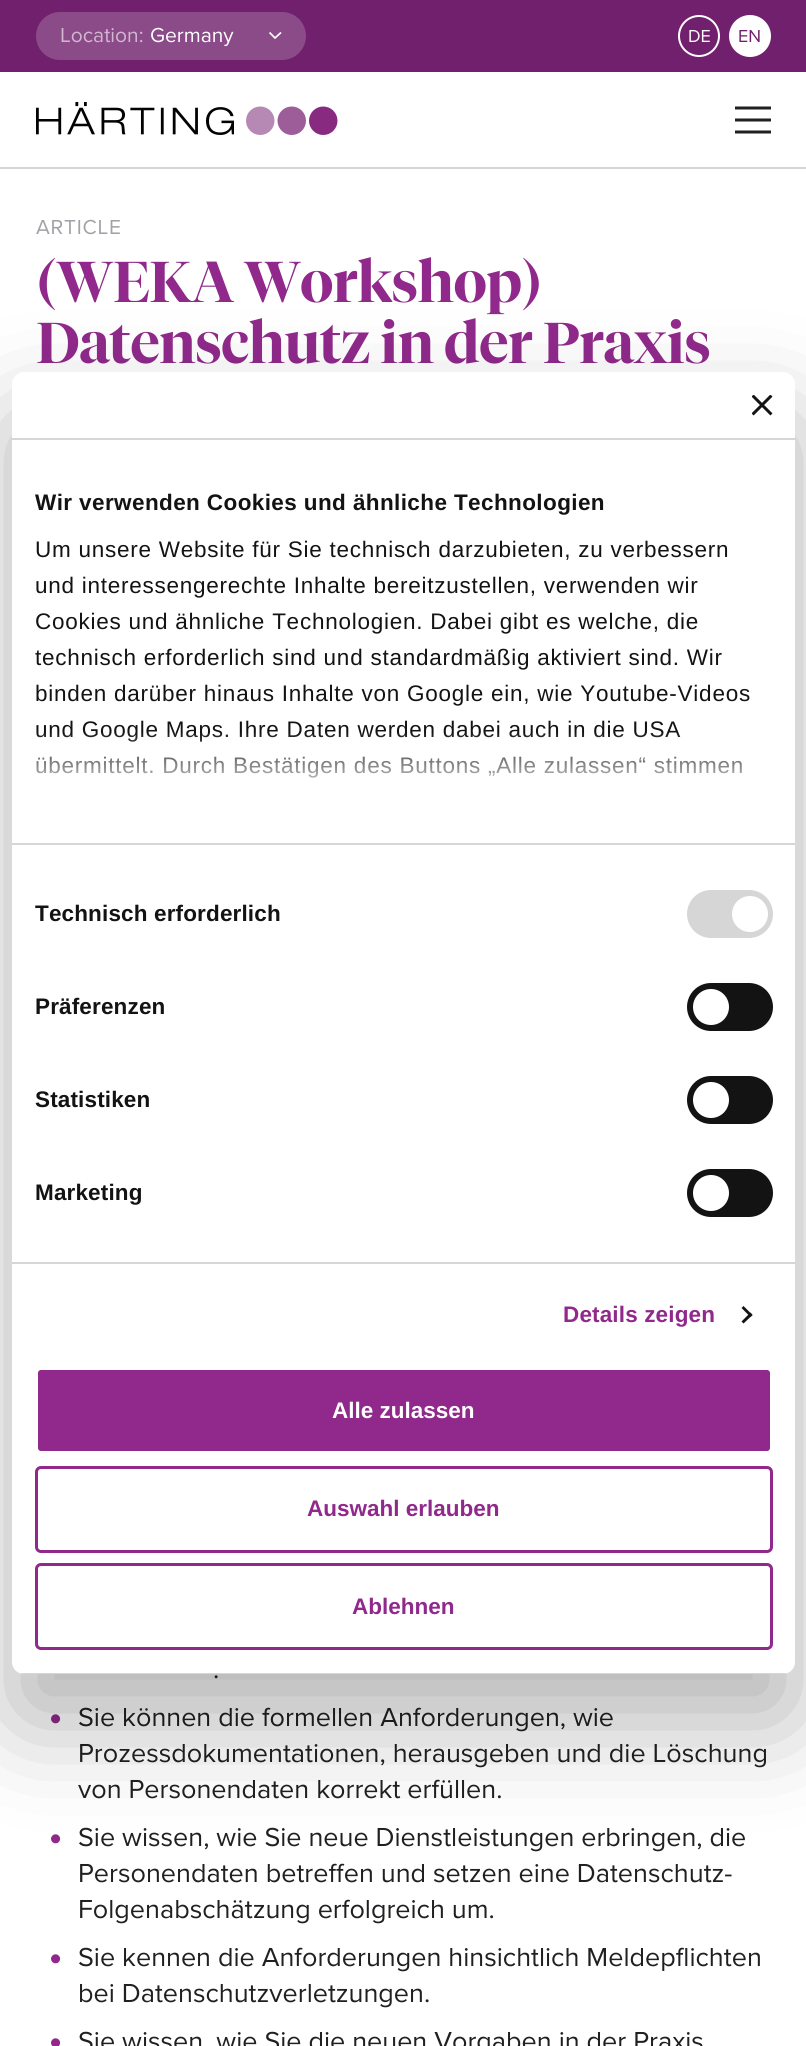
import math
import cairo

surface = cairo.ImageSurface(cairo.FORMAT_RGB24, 806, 2046)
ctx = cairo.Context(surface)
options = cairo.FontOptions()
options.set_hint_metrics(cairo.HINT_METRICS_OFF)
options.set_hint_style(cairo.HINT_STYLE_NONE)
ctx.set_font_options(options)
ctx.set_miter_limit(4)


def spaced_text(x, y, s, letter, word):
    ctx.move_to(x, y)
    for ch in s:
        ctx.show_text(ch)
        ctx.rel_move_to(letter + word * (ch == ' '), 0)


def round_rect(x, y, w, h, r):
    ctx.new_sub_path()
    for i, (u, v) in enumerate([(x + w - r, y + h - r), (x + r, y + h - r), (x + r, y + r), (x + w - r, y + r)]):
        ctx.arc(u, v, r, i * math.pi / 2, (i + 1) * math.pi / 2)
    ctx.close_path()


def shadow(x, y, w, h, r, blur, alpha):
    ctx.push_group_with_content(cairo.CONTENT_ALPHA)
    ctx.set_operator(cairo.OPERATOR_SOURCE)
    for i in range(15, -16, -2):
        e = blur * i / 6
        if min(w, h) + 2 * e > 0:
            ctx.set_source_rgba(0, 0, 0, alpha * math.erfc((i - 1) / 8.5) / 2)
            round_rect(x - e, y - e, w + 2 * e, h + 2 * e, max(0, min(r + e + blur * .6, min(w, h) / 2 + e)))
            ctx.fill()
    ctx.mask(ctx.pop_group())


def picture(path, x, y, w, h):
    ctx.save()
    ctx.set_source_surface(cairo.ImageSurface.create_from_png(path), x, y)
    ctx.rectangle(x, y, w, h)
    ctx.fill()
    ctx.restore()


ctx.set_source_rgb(1, 1, 1)
ctx.paint()
ctx.set_source_rgb(0.439, 0.125, 0.424)
ctx.rectangle(0, 0, 806, 72)
ctx.fill()
ctx.set_source_rgb(0.545, 0.29, 0.533)
round_rect(36, 12, 270, 48, 24)
ctx.fill()
ctx.select_font_face("Proxima Nova")
ctx.set_font_size(21)
ctx.set_source_rgb(0.82, 0.718, 0.812)
ctx.move_to(60, 42)
ctx.show_text("Location:")
ctx.set_source_rgb(1, 1, 1)
ctx.move_to(150, 42)
ctx.show_text("Germany")
ctx.new_path()
ctx.move_to(281, 32.5)
ctx.line_to(275, 38)
ctx.line_to(269.5, 32.5)
ctx.set_line_width(1.7)
ctx.stroke()
ctx.arc(699, 36, 20, 0, 2 * math.pi)
ctx.set_line_width(2)
ctx.stroke()
ctx.set_font_size(18)
ctx.move_to(688, 42)
ctx.show_text("DE")
ctx.new_path()
ctx.arc(750, 36, 20, 0, 2 * math.pi)
ctx.fill_preserve()
ctx.stroke()
ctx.set_source_rgb(0.439, 0.125, 0.424)
ctx.move_to(738, 42)
ctx.show_text("EN")
ctx.set_source_rgb(0.839, 0.839, 0.855)
ctx.rectangle(0, 167, 806, 2)
ctx.fill()
picture("img1.png", 36, 102, 302, 33)
ctx.set_source_rgb(0.125, 0.125, 0.137)
ctx.set_fill_rule(cairo.FILL_RULE_EVEN_ODD)
ctx.new_path()
ctx.move_to(735, 106.5)
ctx.line_to(771, 106.5)
ctx.line_to(771, 109.5)
ctx.line_to(735, 109.5)
ctx.close_path()
ctx.move_to(735, 118.5)
ctx.line_to(771, 118.5)
ctx.line_to(771, 121.5)
ctx.line_to(735, 121.5)
ctx.close_path()
ctx.move_to(771, 130.5)
ctx.line_to(735, 130.5)
ctx.line_to(735, 133.5)
ctx.line_to(771, 133.5)
ctx.close_path()
ctx.fill()
ctx.set_font_size(21)
ctx.set_source_rgb(0.631, 0.631, 0.655)
spaced_text(36, 234, "ARTICLE", 0.75, 0)
ctx.select_font_face("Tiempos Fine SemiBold")
ctx.set_font_size(57.25)
ctx.set_source_rgb(0.565, 0.161, 0.545)
spaced_text(36, 302, "(WEKA Workshop)", -0.15, 0)
spaced_text(36, 363, "Datenschutz in der Praxis", -0.15, 0)
ctx.select_font_face("Proxima Nova")
ctx.set_font_size(27)
ctx.set_source_rgb(0.125, 0.125, 0.137)
ctx.move_to(213, 1678)
ctx.show_text(".")
ctx.set_font_size(42)
ctx.set_source_rgb(0.565, 0.161, 0.545)
ctx.move_to(48, 1729)
ctx.show_text("•")
ctx.set_font_size(27)
ctx.set_source_rgb(0.125, 0.125, 0.137)
ctx.move_to(78, 1726)
ctx.show_text("Sie können die formellen Anforderungen, wie")
ctx.move_to(78, 1762)
ctx.show_text("Prozessdokumentationen, herausgeben und die Löschung")
ctx.move_to(78, 1798)
ctx.show_text("von Personendaten korrekt erfüllen.")
ctx.set_font_size(42)
ctx.set_source_rgb(0.565, 0.161, 0.545)
ctx.move_to(48, 1849)
ctx.show_text("•")
ctx.set_font_size(27)
ctx.set_source_rgb(0.125, 0.125, 0.137)
ctx.move_to(78, 1846)
ctx.show_text("Sie wissen, wie Sie neue Dienstleistungen erbringen, die")
ctx.move_to(78, 1882)
ctx.show_text("Personendaten betreffen und setzen eine Datenschutz-")
ctx.move_to(78, 1918)
ctx.show_text("Folgenabschätzung erfolgreich um.")
ctx.set_font_size(42)
ctx.set_source_rgb(0.565, 0.161, 0.545)
ctx.move_to(48, 1969)
ctx.show_text("•")
ctx.set_font_size(27)
ctx.set_source_rgb(0.125, 0.125, 0.137)
ctx.move_to(78, 1966)
ctx.show_text("Sie kennen die Anforderungen hinsichtlich Meldepflichten")
ctx.move_to(78, 2002)
ctx.show_text("bei Datenschutzverletzungen.")
ctx.set_font_size(42)
ctx.set_source_rgb(0.565, 0.161, 0.545)
ctx.move_to(48, 2053)
ctx.show_text("•")
ctx.set_font_size(27)
ctx.set_source_rgb(0.125, 0.125, 0.137)
ctx.move_to(78, 2050)
ctx.show_text("Sie wissen, wie Sie die neuen Vorgaben in der Praxis")
ctx.set_source_rgb(0, 0, 0)
shadow(12, 420, 783, 1302, 12, 51, 0.3)
ctx.set_source_rgb(1, 1, 1)
round_rect(12, 372, 783, 1302, 12)
ctx.fill()
ctx.set_source_rgb(0.839, 0.839, 0.839)
ctx.rectangle(12, 438, 783, 2)
ctx.fill()
picture("img2.png", 752, 395, 21, 21)
ctx.rectangle(12, 843, 783, 2)
ctx.fill()
ctx.select_font_face("Liberation Sans", cairo.FONT_SLANT_NORMAL, cairo.FONT_WEIGHT_BOLD)
ctx.set_font_size(22.5)
ctx.set_source_rgb(0.078, 0.078, 0.078)
spaced_text(35, 510, "Wir verwenden Cookies und ähnliche Technologien", 0.4, 0)
ctx.select_font_face("Liberation Sans")
spaced_text(35, 557, "Um unsere Website für Sie technisch darzubieten, zu verbessern", 0.75, 0)
spaced_text(35, 593, "und interessengerechte Inhalte bereitzustellen, verwenden wir", 0.75, 0)
spaced_text(35, 629, "Cookies und ähnliche Technologien. Dabei gibt es welche, die", 0.75, 0)
spaced_text(35, 665, "technisch erforderlich sind und standardmäßig aktiviert sind. Wir", 0.75, 0)
spaced_text(35, 701, "binden darüber hinaus Inhalte von Google ein, wie Youtube-Videos", 0.75, 0)
spaced_text(35, 737, "und Google Maps. Ihre Daten werden dabei auch in die USA", 0.75, 0)
spaced_text(35, 773, "übermittelt. Durch Bestätigen des Buttons „Alle zulassen“ stimmen", 0.75, 0)
gradient = cairo.LinearGradient(394, 843, 394, 731)
gradient.add_color_stop_rgba(0, 1, 1, 1, 1)
gradient.add_color_stop_rgba(0.5, 1, 1, 1, 0.8)
gradient.add_color_stop_rgba(1, 1, 1, 1, 0)
ctx.set_source(gradient)
ctx.rectangle(36, 733, 706, 45)
ctx.fill()
ctx.set_source_rgb(0.839, 0.839, 0.839)
ctx.rectangle(12, 1262, 783, 2)
ctx.fill()
ctx.select_font_face("Liberation Sans", cairo.FONT_SLANT_NORMAL, cairo.FONT_WEIGHT_BOLD)
ctx.set_source_rgb(0.078, 0.078, 0.078)
spaced_text(35, 921, "Technisch erforderlich", 0.15, 0)
ctx.set_source_rgb(0.839, 0.839, 0.839)
round_rect(687, 890, 86, 48, 24)
ctx.fill()
ctx.set_source_rgb(1, 1, 1)
ctx.arc(750, 914, 18, 0, 2 * math.pi)
ctx.fill()
ctx.set_source_rgb(0.078, 0.078, 0.078)
spaced_text(35, 1014, "Präferenzen", 0.15, 0)
round_rect(687, 983, 86, 48, 24)
ctx.fill()
ctx.set_source_rgb(1, 1, 1)
ctx.arc(711, 1007, 18, 0, 2 * math.pi)
ctx.fill()
ctx.set_source_rgb(0.078, 0.078, 0.078)
spaced_text(35, 1107, "Statistiken", 0.15, 0)
round_rect(687, 1076, 86, 48, 24)
ctx.fill()
ctx.set_source_rgb(1, 1, 1)
ctx.arc(711, 1100, 18, 0, 2 * math.pi)
ctx.fill()
ctx.set_source_rgb(0.078, 0.078, 0.078)
spaced_text(35, 1200, "Marketing", 0.15, 0)
round_rect(687, 1169, 86, 48, 24)
ctx.fill()
ctx.set_source_rgb(1, 1, 1)
ctx.arc(711, 1193, 18, 0, 2 * math.pi)
ctx.fill()
ctx.set_source_rgb(0.565, 0.161, 0.545)
spaced_text(563, 1322, "Details zeigen", 0.15, 0)
ctx.set_source_rgb(0.078, 0.078, 0.078)
ctx.set_fill_rule(cairo.FILL_RULE_WINDING)
ctx.new_path()
ctx.move_to(743.5, 1306)
ctx.line_to(752.5, 1315)
ctx.line_to(750.5, 1317)
ctx.line_to(741.5, 1308)
ctx.close_path()
ctx.fill()
ctx.new_path()
ctx.move_to(750.5, 1312.5)
ctx.line_to(752.5, 1315)
ctx.line_to(743.5, 1323.5)
ctx.line_to(741.5, 1321.5)
ctx.close_path()
ctx.fill()
ctx.save()
round_rect(12, 372, 783, 1302, 12)
ctx.clip()
ctx.set_source_rgb(0.839, 0.839, 0.839)
ctx.rectangle(12, 1673, 783, 1)
ctx.fill()
ctx.restore()
ctx.set_source_rgb(0.565, 0.161, 0.545)
round_rect(36.5, 1368.5, 735, 84, 4.5)
ctx.fill_preserve()
ctx.set_source_rgb(1, 1, 1)
ctx.set_line_width(3)
ctx.stroke()
ctx.move_to(332, 1418)
ctx.show_text("Alle zulassen")
round_rect(36.5, 1467.5, 735, 84, 4.5)
ctx.set_source_rgb(0.565, 0.161, 0.545)
ctx.stroke()
ctx.move_to(307, 1516)
ctx.show_text("Auswahl erlauben")
round_rect(36.5, 1564.5, 735, 84, 4.5)
ctx.stroke()
ctx.move_to(352, 1614)
ctx.show_text("Ablehnen")
surface.write_to_png("page.png")
